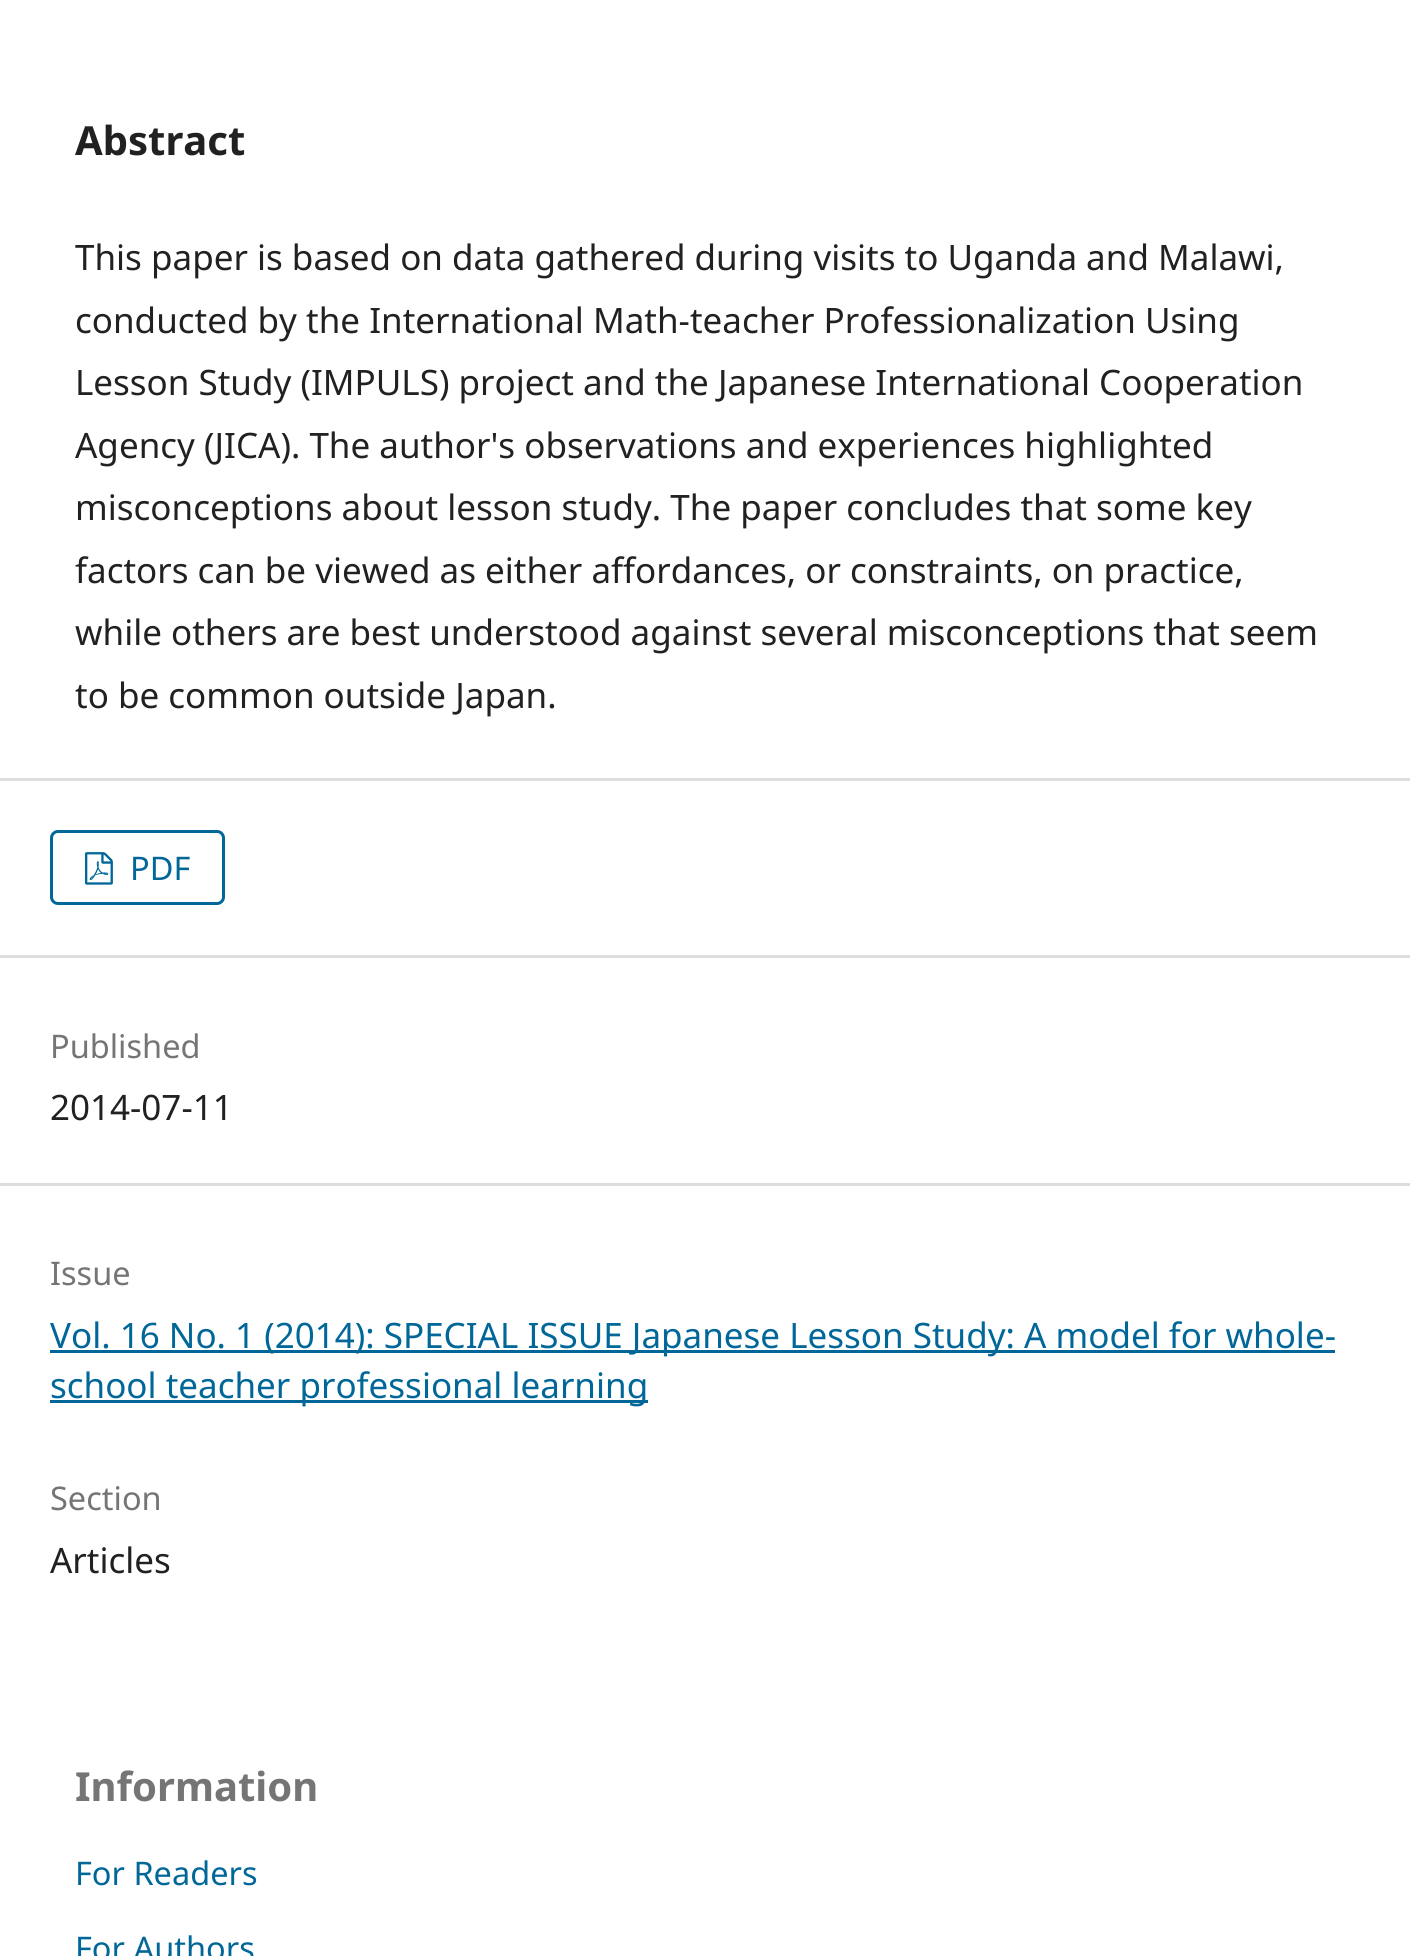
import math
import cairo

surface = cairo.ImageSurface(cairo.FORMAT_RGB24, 1410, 1956)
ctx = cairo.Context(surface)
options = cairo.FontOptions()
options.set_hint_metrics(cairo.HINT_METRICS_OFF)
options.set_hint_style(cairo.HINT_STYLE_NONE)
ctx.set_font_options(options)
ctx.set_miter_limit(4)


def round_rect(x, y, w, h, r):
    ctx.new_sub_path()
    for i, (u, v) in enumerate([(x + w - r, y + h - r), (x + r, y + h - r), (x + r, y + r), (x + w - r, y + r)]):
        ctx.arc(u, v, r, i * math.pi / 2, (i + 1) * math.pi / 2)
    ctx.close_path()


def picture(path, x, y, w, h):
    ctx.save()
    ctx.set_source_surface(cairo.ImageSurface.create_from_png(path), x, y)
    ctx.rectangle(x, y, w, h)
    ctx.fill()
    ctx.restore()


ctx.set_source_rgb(1, 1, 1)
ctx.paint()
ctx.select_font_face("Noto Sans", cairo.FONT_SLANT_NORMAL, cairo.FONT_WEIGHT_BOLD)
ctx.set_font_size(40)
ctx.set_source_rgb(0.129, 0.129, 0.129)
ctx.move_to(75, 155)
ctx.show_text("Abstract")
ctx.select_font_face("Noto Sans")
ctx.set_font_size(35)
ctx.move_to(75, 270)
ctx.show_text("This paper is based on data gathered during visits to Uganda and Malawi,")
ctx.move_to(75, 333)
ctx.show_text("conducted by the International Math-teacher Professionalization Using")
ctx.move_to(75, 395)
ctx.show_text("Lesson Study (IMPULS) project and the Japanese International Cooperation")
ctx.move_to(75, 458)
ctx.show_text("Agency (JICA). The author's observations and experiences highlighted")
ctx.move_to(75, 520)
ctx.show_text("misconceptions about lesson study. The paper concludes that some key")
ctx.move_to(75, 583)
ctx.show_text("factors can be viewed as either affordances, or constraints, on practice,")
ctx.move_to(75, 645)
ctx.show_text("while others are best understood against several misconceptions that seem")
ctx.move_to(75, 708)
ctx.show_text("to be common outside Japan.")
ctx.set_source_rgb(0.867, 0.867, 0.867)
ctx.rectangle(0, 778, 1410, 3)
ctx.fill()
ctx.rectangle(0, 955, 1410, 3)
ctx.fill()
round_rect(51.5, 831.5, 172, 72, 6.5)
ctx.set_source_rgb(0, 0.404, 0.596)
ctx.set_line_width(3)
ctx.stroke()
picture("img1.png", 85, 852, 28, 33)
ctx.set_font_size(32.5)
ctx.move_to(130, 880)
ctx.show_text("PDF")
ctx.set_source_rgb(0.867, 0.867, 0.867)
ctx.rectangle(0, 1183, 1410, 3)
ctx.fill()
ctx.set_source_rgb(0.459, 0.459, 0.459)
ctx.move_to(50, 1058)
ctx.show_text("Published")
ctx.set_font_size(35)
ctx.set_source_rgb(0.129, 0.129, 0.129)
ctx.move_to(50, 1120)
ctx.show_text("2014-07-11")
ctx.set_font_size(32.5)
ctx.set_source_rgb(0.459, 0.459, 0.459)
ctx.move_to(50, 1285)
ctx.show_text("Issue")
ctx.set_source_rgb(0, 0.404, 0.596)
ctx.rectangle(50, 1350, 1285, 3)
ctx.fill()
ctx.set_font_size(35)
ctx.move_to(50, 1348)
ctx.show_text("Vol. 16 No. 1 (2014): SPECIAL ISSUE Japanese Lesson Study: A model for whole-")
ctx.rectangle(50, 1400, 598, 3)
ctx.fill()
ctx.move_to(50, 1398)
ctx.show_text("school teacher professional learning")
ctx.set_font_size(32.5)
ctx.set_source_rgb(0.459, 0.459, 0.459)
ctx.move_to(50, 1510)
ctx.show_text("Section")
ctx.set_font_size(35)
ctx.set_source_rgb(0.129, 0.129, 0.129)
ctx.move_to(50, 1573)
ctx.show_text("Articles")
ctx.select_font_face("Noto Sans", cairo.FONT_SLANT_NORMAL, cairo.FONT_WEIGHT_BOLD)
ctx.set_font_size(40)
ctx.set_source_rgb(0.459, 0.459, 0.459)
ctx.move_to(75, 1801)
ctx.show_text("Information")
ctx.select_font_face("Noto Sans")
ctx.set_font_size(32.5)
ctx.set_source_rgb(0, 0.404, 0.596)
ctx.move_to(75, 1885)
ctx.show_text("For Readers")
ctx.move_to(75, 1960)
ctx.show_text("For Authors")
surface.write_to_png("page.png")
